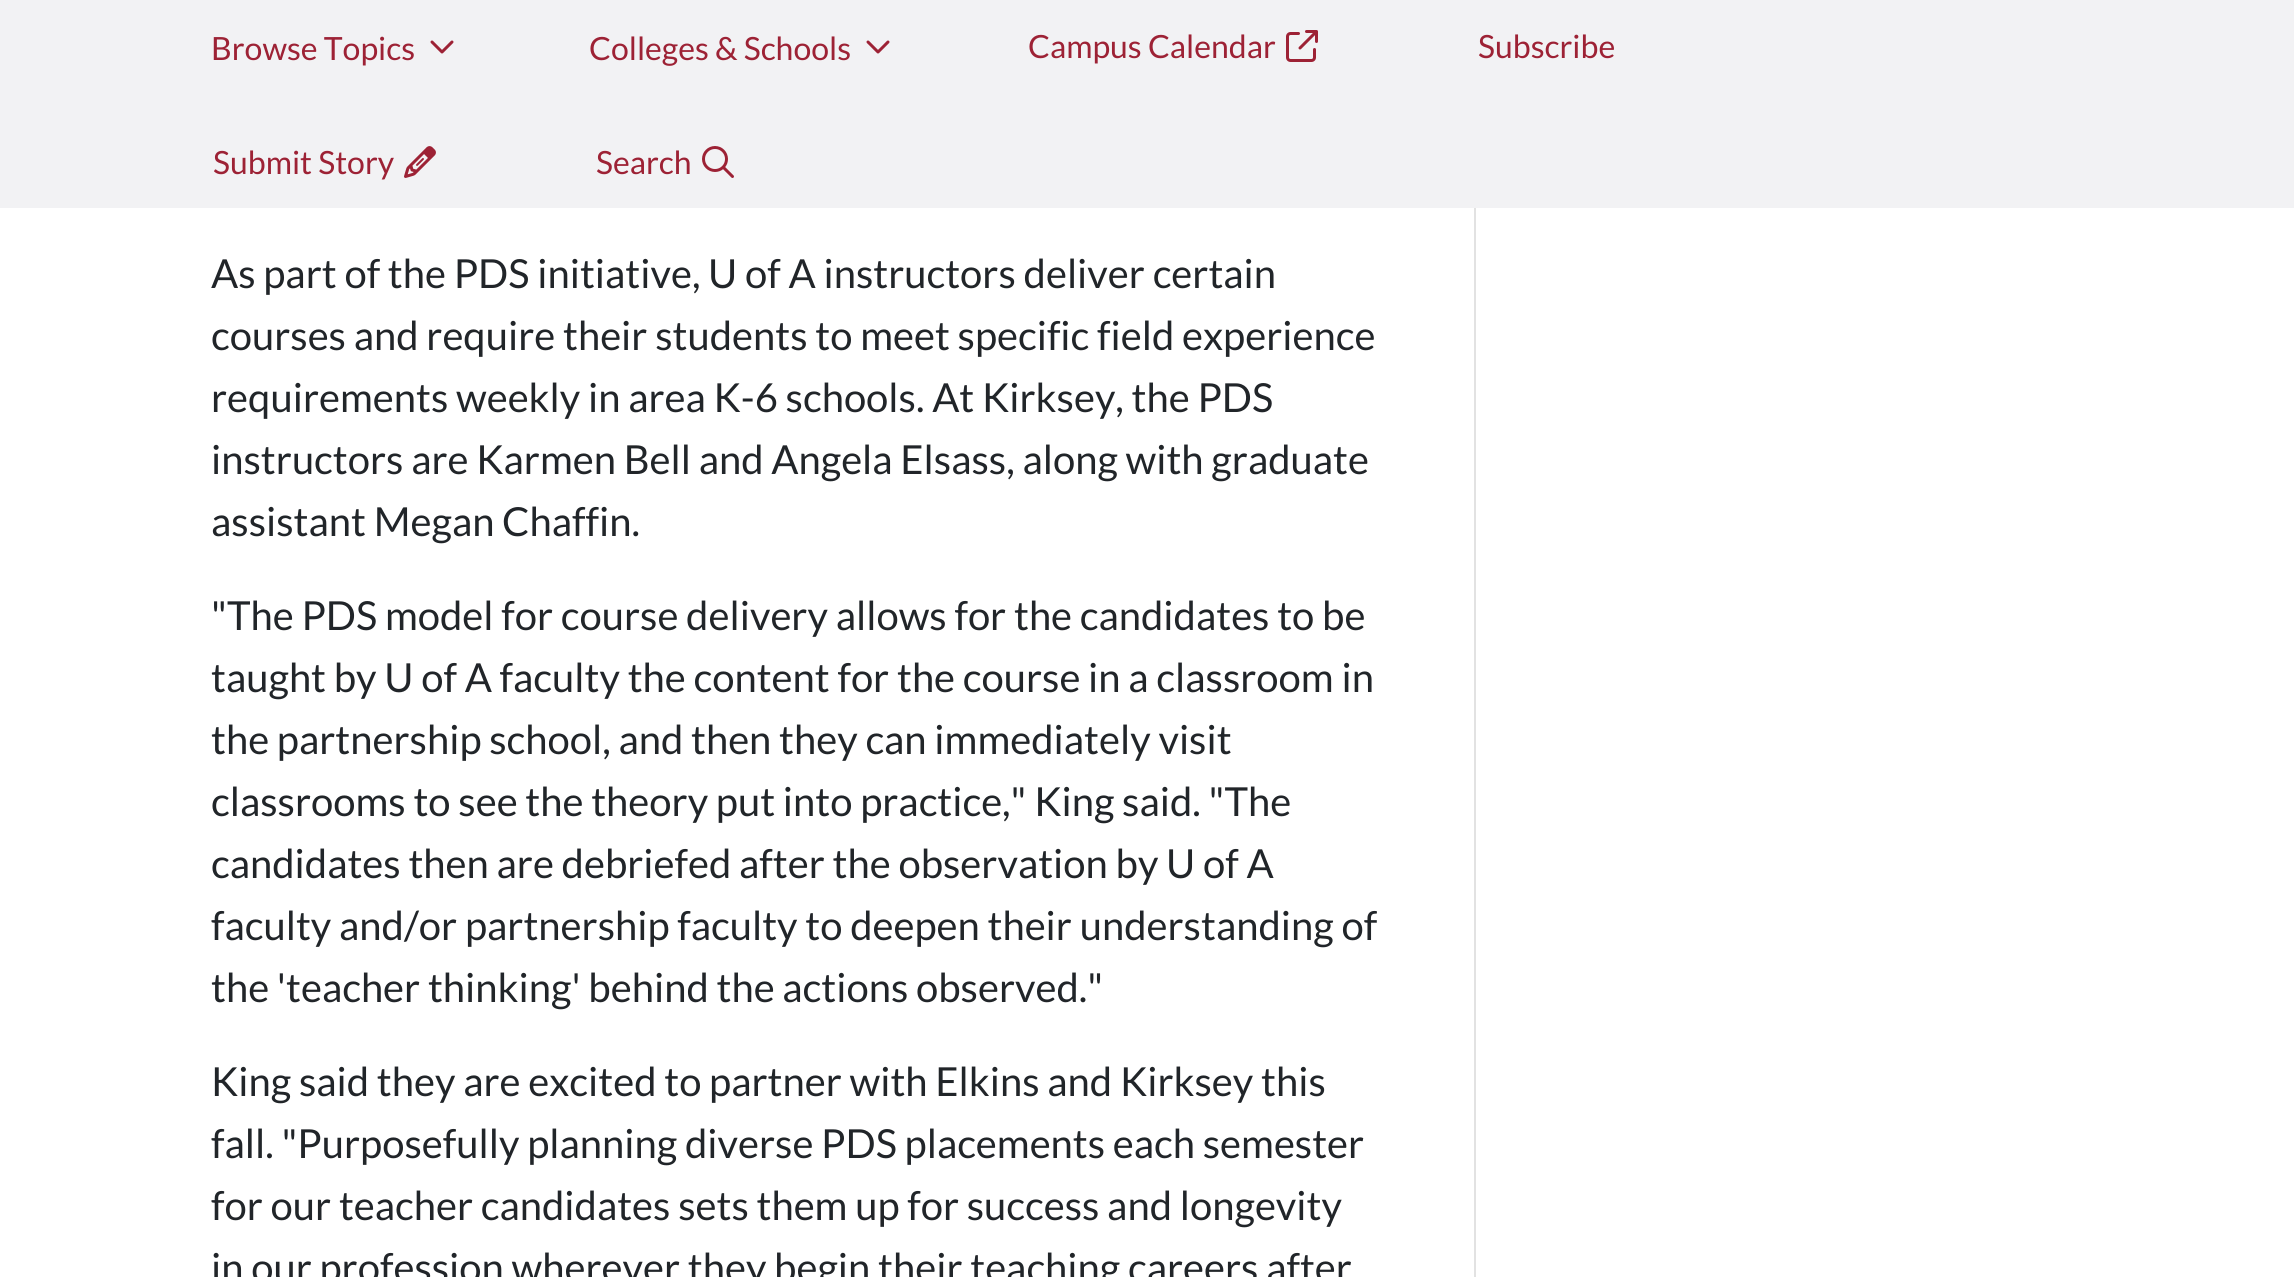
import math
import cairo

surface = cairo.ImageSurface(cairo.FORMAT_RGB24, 2294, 1277)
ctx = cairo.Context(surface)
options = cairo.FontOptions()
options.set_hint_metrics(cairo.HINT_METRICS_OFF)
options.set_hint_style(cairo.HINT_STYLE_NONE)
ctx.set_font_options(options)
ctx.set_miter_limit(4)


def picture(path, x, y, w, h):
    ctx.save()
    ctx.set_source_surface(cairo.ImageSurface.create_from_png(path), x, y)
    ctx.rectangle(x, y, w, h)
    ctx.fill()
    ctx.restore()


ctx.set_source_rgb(1, 1, 1)
ctx.paint()
ctx.set_source_rgb(0.949, 0.949, 0.957)
ctx.rectangle(0, 0, 2294, 208)
ctx.fill()
ctx.select_font_face("Lato")
ctx.set_font_size(32)
ctx.set_source_rgb(0.616, 0.133, 0.208)
ctx.move_to(211, 60)
ctx.show_text("Browse Topics")
picture("img1.png", 430, 40, 24, 14)
ctx.move_to(589, 60)
ctx.show_text("Colleges & Schools")
picture("img1.png", 866, 40, 24, 14)
ctx.move_to(1028, 58)
ctx.show_text("Campus Calendar")
picture("img2.png", 1286, 30, 32, 32)
ctx.move_to(1478, 58)
ctx.show_text("Subscribe")
ctx.move_to(213, 174)
ctx.show_text("Submit Story")
picture("img3.png", 404, 146, 32, 32)
ctx.move_to(596, 174)
ctx.show_text("Search")
picture("img4.png", 702, 146, 32, 32)
ctx.set_source_rgb(0.886, 0.886, 0.886)
ctx.rectangle(1474, 208, 2, 1069)
ctx.fill()
ctx.set_font_size(40)
ctx.set_source_rgb(0.129, 0.145, 0.161)
ctx.move_to(211, 288)
ctx.show_text("As part of the PDS initiative, U of A instructors deliver certain")
ctx.move_to(211, 350)
ctx.show_text("courses and require their students to meet specific field experience")
ctx.move_to(211, 412)
ctx.show_text("requirements weekly in area K-6 schools. At Kirksey, the PDS")
ctx.move_to(211, 474)
ctx.show_text("instructors are Karmen Bell and Angela Elsass, along with graduate")
ctx.move_to(211, 536)
ctx.show_text("assistant Megan Chaffin.")
ctx.move_to(211, 630)
ctx.show_text("\"The PDS model for course delivery allows for the candidates to be")
ctx.move_to(211, 692)
ctx.show_text("taught by U of A faculty the content for the course in a classroom in")
ctx.move_to(211, 754)
ctx.show_text("the partnership school, and then they can immediately visit")
ctx.move_to(211, 816)
ctx.show_text("classrooms to see the theory put into practice,\" King said. \"The")
ctx.move_to(211, 878)
ctx.show_text("candidates then are debriefed after the observation by U of A")
ctx.move_to(211, 940)
ctx.show_text("faculty and/or partnership faculty to deepen their understanding of")
ctx.move_to(211, 1002)
ctx.show_text("the 'teacher thinking' behind the actions observed.\"")
ctx.move_to(211, 1096)
ctx.show_text("King said they are excited to partner with Elkins and Kirksey this")
ctx.move_to(211, 1158)
ctx.show_text("fall. \"Purposefully planning diverse PDS placements each semester")
ctx.move_to(211, 1220)
ctx.show_text("for our teacher candidates sets them up for success and longevity")
ctx.move_to(211, 1282)
ctx.show_text("in our profession wherever they begin their teaching careers after")
surface.write_to_png("page.png")
